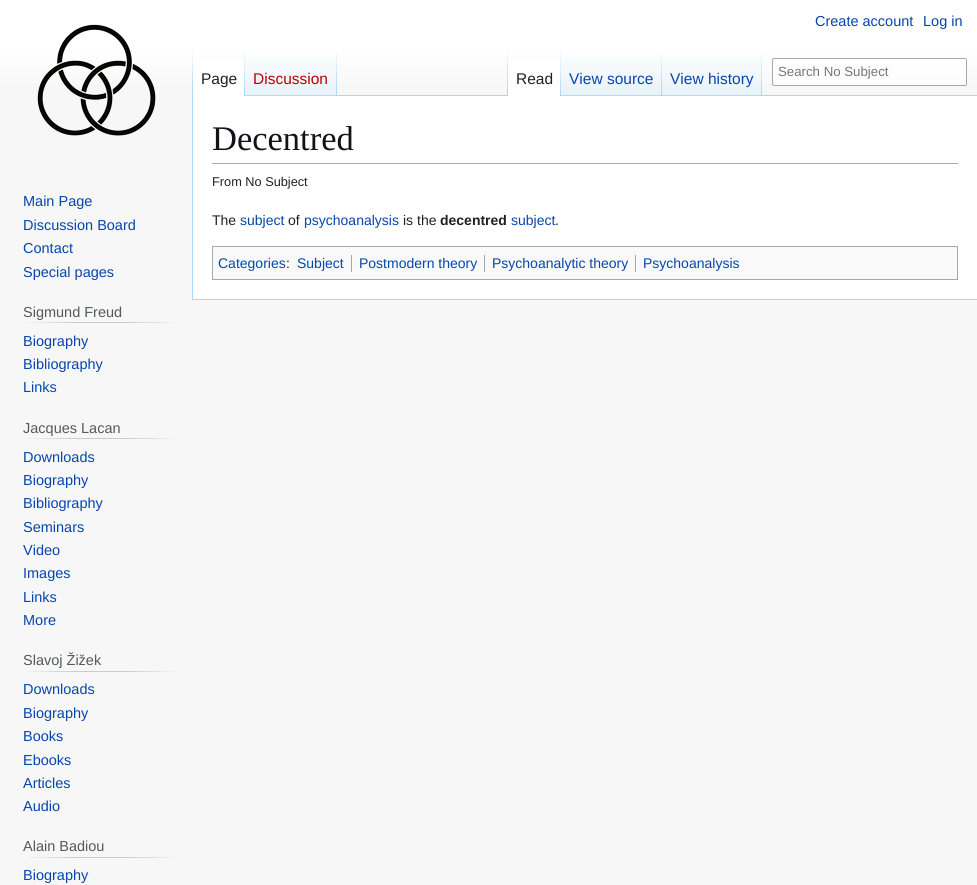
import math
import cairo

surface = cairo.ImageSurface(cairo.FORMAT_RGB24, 977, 885)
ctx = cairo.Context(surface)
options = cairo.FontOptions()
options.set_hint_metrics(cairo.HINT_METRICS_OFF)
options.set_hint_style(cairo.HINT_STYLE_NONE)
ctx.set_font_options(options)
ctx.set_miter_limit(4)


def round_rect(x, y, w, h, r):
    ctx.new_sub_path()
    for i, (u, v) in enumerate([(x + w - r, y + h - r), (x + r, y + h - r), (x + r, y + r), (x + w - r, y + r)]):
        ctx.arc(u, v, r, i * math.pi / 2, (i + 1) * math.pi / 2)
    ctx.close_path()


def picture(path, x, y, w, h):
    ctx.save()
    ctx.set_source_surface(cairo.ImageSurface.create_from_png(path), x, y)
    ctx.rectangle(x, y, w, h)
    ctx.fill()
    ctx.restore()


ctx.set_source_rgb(0.965, 0.965, 0.965)
ctx.paint()
gradient = cairo.LinearGradient(489, 0, 489, 96)
gradient.add_color_stop_rgba(0.5, 1, 1, 1, 1)
gradient.add_color_stop_rgba(1, 0.965, 0.965, 0.965, 1)
ctx.set_source(gradient)
ctx.rectangle(0, 0, 977, 83)
ctx.fill()
ctx.select_font_face("Liberation Sans")
ctx.set_font_size(14.5)
ctx.set_source_rgb(0.024, 0.271, 0.678)
ctx.move_to(815, 26)
ctx.show_text("Create account")
ctx.move_to(923, 26)
ctx.show_text("Log in")
ctx.set_source_rgb(0.655, 0.843, 0.976)
ctx.rectangle(192, 299, 785, 1)
ctx.fill()
ctx.rectangle(192, 95, 1, 205)
ctx.fill()
gradient = cairo.LinearGradient(193, 48, 193, 96)
gradient.add_color_stop_rgba(0, 0.655, 0.843, 0.976, 0)
gradient.add_color_stop_rgba(1, 0.655, 0.843, 0.976, 1)
ctx.set_source(gradient)
ctx.rectangle(192, 48, 1, 48)
ctx.fill()
ctx.set_source_rgb(1, 1, 1)
ctx.rectangle(193, 61, 51, 35)
ctx.fill()
gradient = cairo.LinearGradient(245, 48, 245, 96)
gradient.add_color_stop_rgba(0, 1, 1, 1, 1)
gradient.add_color_stop_rgba(1, 0.655, 0.843, 0.976, 1)
ctx.set_source(gradient)
ctx.rectangle(244, 48, 1, 48)
ctx.fill()
ctx.set_font_size(15.5)
ctx.set_source_rgb(0.125, 0.129, 0.133)
ctx.move_to(201, 84)
ctx.show_text("Page")
gradient = cairo.LinearGradient(291, 96, 291, 48)
gradient.add_color_stop_rgba(0, 0.467, 0.757, 0.965, 1)
gradient.add_color_stop_rgba(0.02, 0.91, 0.949, 0.973, 1)
gradient.add_color_stop_rgba(1, 1, 1, 1, 1)
ctx.set_source(gradient)
ctx.rectangle(245, 55, 92, 41)
ctx.fill()
gradient = cairo.LinearGradient(337, 48, 337, 96)
gradient.add_color_stop_rgba(0, 0.655, 0.843, 0.976, 0)
gradient.add_color_stop_rgba(1, 0.655, 0.843, 0.976, 1)
ctx.set_source(gradient)
ctx.rectangle(336, 48, 1, 48)
ctx.fill()
ctx.set_source_rgb(0.729, 0, 0)
ctx.move_to(253, 84)
ctx.show_text("Discussion")
ctx.set_source_rgb(0.655, 0.843, 0.976)
ctx.rectangle(337, 95, 640, 1)
ctx.fill()
gradient = cairo.LinearGradient(508, 48, 508, 96)
gradient.add_color_stop_rgba(0, 0.655, 0.843, 0.976, 0)
gradient.add_color_stop_rgba(1, 0.655, 0.843, 0.976, 1)
ctx.set_source(gradient)
ctx.rectangle(507, 48, 1, 48)
ctx.fill()
ctx.set_source_rgb(1, 1, 1)
ctx.rectangle(508, 61, 52, 35)
ctx.fill()
gradient = cairo.LinearGradient(561, 48, 561, 96)
gradient.add_color_stop_rgba(0, 1, 1, 1, 1)
gradient.add_color_stop_rgba(1, 0.655, 0.843, 0.976, 1)
ctx.set_source(gradient)
ctx.rectangle(560, 48, 1, 48)
ctx.fill()
ctx.set_source_rgb(0.125, 0.129, 0.133)
ctx.move_to(516, 84)
ctx.show_text("Read")
gradient = cairo.LinearGradient(612, 96, 612, 48)
gradient.add_color_stop_rgba(0, 0.467, 0.757, 0.965, 1)
gradient.add_color_stop_rgba(0.02, 0.91, 0.949, 0.973, 1)
gradient.add_color_stop_rgba(1, 1, 1, 1, 1)
ctx.set_source(gradient)
ctx.rectangle(561, 55, 101, 41)
ctx.fill()
gradient = cairo.LinearGradient(662, 48, 662, 96)
gradient.add_color_stop_rgba(0, 0.655, 0.843, 0.976, 0)
gradient.add_color_stop_rgba(1, 0.655, 0.843, 0.976, 1)
ctx.set_source(gradient)
ctx.rectangle(661, 48, 1, 48)
ctx.fill()
ctx.set_source_rgb(0.024, 0.271, 0.678)
ctx.move_to(569, 84)
ctx.show_text("View source")
gradient = cairo.LinearGradient(712, 96, 712, 48)
gradient.add_color_stop_rgba(0, 0.467, 0.757, 0.965, 1)
gradient.add_color_stop_rgba(0.02, 0.91, 0.949, 0.973, 1)
gradient.add_color_stop_rgba(1, 1, 1, 1, 1)
ctx.set_source(gradient)
ctx.rectangle(662, 55, 100, 41)
ctx.fill()
gradient = cairo.LinearGradient(762, 48, 762, 96)
gradient.add_color_stop_rgba(0, 0.655, 0.843, 0.976, 0)
gradient.add_color_stop_rgba(1, 0.655, 0.843, 0.976, 1)
ctx.set_source(gradient)
ctx.rectangle(761, 48, 1, 48)
ctx.fill()
ctx.set_source_rgb(0.024, 0.271, 0.678)
ctx.move_to(670, 84)
ctx.show_text("View history")
ctx.set_source_rgba(1, 1, 1, 0.5)
round_rect(772.5, 58.5, 194, 27, 1.5)
ctx.fill_preserve()
ctx.set_source_rgb(0.635, 0.663, 0.694)
ctx.set_line_width(1)
ctx.stroke()
ctx.set_font_size(13.25)
ctx.set_source_rgb(0.447, 0.467, 0.49)
ctx.move_to(778, 76)
ctx.show_text("Search No Subject")
picture("img1.png", 37, 24, 119, 112)
ctx.set_font_size(14.5)
ctx.set_source_rgb(0.024, 0.271, 0.678)
ctx.move_to(23, 206)
ctx.show_text("Main Page")
ctx.move_to(23, 230)
ctx.show_text("Discussion Board")
ctx.move_to(23, 253)
ctx.show_text("Contact")
ctx.move_to(23, 277)
ctx.show_text("Special pages")
gradient = cairo.LinearGradient(23, 323, 180, 323)
gradient.add_color_stop_rgba(0, 0.965, 0.965, 0.965, 1)
gradient.add_color_stop_rgba(0.33, 0.784, 0.8, 0.82, 1)
gradient.add_color_stop_rgba(0.66, 0.784, 0.8, 0.82, 1)
gradient.add_color_stop_rgba(1, 0.965, 0.965, 0.965, 1)
ctx.set_source(gradient)
ctx.rectangle(23, 322, 157, 1)
ctx.fill()
ctx.set_source_rgb(0.329, 0.349, 0.365)
ctx.move_to(23, 317)
ctx.show_text("Sigmund Freud")
ctx.set_source_rgb(0.024, 0.271, 0.678)
ctx.move_to(23, 346)
ctx.show_text("Biography")
ctx.move_to(23, 369)
ctx.show_text("Bibliography")
ctx.move_to(23, 392)
ctx.show_text("Links")
gradient = cairo.LinearGradient(23, 439, 180, 439)
gradient.add_color_stop_rgba(0, 0.965, 0.965, 0.965, 1)
gradient.add_color_stop_rgba(0.33, 0.784, 0.8, 0.82, 1)
gradient.add_color_stop_rgba(0.66, 0.784, 0.8, 0.82, 1)
gradient.add_color_stop_rgba(1, 0.965, 0.965, 0.965, 1)
ctx.set_source(gradient)
ctx.rectangle(23, 438, 157, 1)
ctx.fill()
ctx.set_source_rgb(0.329, 0.349, 0.365)
ctx.move_to(23, 433)
ctx.show_text("Jacques Lacan")
ctx.set_source_rgb(0.024, 0.271, 0.678)
ctx.move_to(23, 462)
ctx.show_text("Downloads")
ctx.move_to(23, 485)
ctx.show_text("Biography")
ctx.move_to(23, 508)
ctx.show_text("Bibliography")
ctx.move_to(23, 532)
ctx.show_text("Seminars")
ctx.move_to(23, 555)
ctx.show_text("Video")
ctx.move_to(23, 578)
ctx.show_text("Images")
ctx.move_to(23, 602)
ctx.show_text("Links")
ctx.move_to(23, 625)
ctx.show_text("More")
gradient = cairo.LinearGradient(23, 672, 180, 672)
gradient.add_color_stop_rgba(0, 0.965, 0.965, 0.965, 1)
gradient.add_color_stop_rgba(0.33, 0.784, 0.8, 0.82, 1)
gradient.add_color_stop_rgba(0.66, 0.784, 0.8, 0.82, 1)
gradient.add_color_stop_rgba(1, 0.965, 0.965, 0.965, 1)
ctx.set_source(gradient)
ctx.rectangle(23, 671, 157, 1)
ctx.fill()
ctx.set_source_rgb(0.329, 0.349, 0.365)
ctx.move_to(23, 665)
ctx.show_text("Slavoj Žižek")
ctx.set_source_rgb(0.024, 0.271, 0.678)
ctx.move_to(23, 694)
ctx.show_text("Downloads")
ctx.move_to(23, 718)
ctx.show_text("Biography")
ctx.move_to(23, 741)
ctx.show_text("Books")
ctx.move_to(23, 765)
ctx.show_text("Ebooks")
ctx.move_to(23, 788)
ctx.show_text("Articles")
ctx.move_to(23, 811)
ctx.show_text("Audio")
gradient = cairo.LinearGradient(23, 858, 180, 858)
gradient.add_color_stop_rgba(0, 0.965, 0.965, 0.965, 1)
gradient.add_color_stop_rgba(0.33, 0.784, 0.8, 0.82, 1)
gradient.add_color_stop_rgba(0.66, 0.784, 0.8, 0.82, 1)
gradient.add_color_stop_rgba(1, 0.965, 0.965, 0.965, 1)
ctx.set_source(gradient)
ctx.rectangle(23, 857, 157, 1)
ctx.fill()
ctx.set_source_rgb(0.329, 0.349, 0.365)
ctx.move_to(23, 851)
ctx.show_text("Alain Badiou")
ctx.set_source_rgb(0.024, 0.271, 0.678)
ctx.move_to(23, 880)
ctx.show_text("Biography")
ctx.set_source_rgb(1, 1, 1)
ctx.rectangle(193, 96, 784, 203)
ctx.fill()
ctx.set_source_rgb(0.635, 0.663, 0.694)
ctx.rectangle(212, 163, 746, 1)
ctx.fill()
ctx.select_font_face("Liberation Serif")
ctx.set_font_size(34.5)
ctx.set_source_rgb(0.063, 0.078, 0.094)
ctx.move_to(212, 150)
ctx.show_text("Decentred")
ctx.select_font_face("Liberation Sans")
ctx.set_font_size(12.75)
ctx.set_source_rgb(0.125, 0.129, 0.133)
ctx.move_to(212, 186)
ctx.show_text("From No Subject")
ctx.set_font_size(14)
ctx.move_to(212, 225)
ctx.show_text("The")
ctx.set_source_rgb(0.024, 0.271, 0.678)
ctx.move_to(240, 225)
ctx.show_text("subject")
ctx.set_source_rgb(0.125, 0.129, 0.133)
ctx.move_to(288, 225)
ctx.show_text("of")
ctx.set_source_rgb(0.024, 0.271, 0.678)
ctx.move_to(304, 225)
ctx.show_text("psychoanalysis")
ctx.set_source_rgb(0.125, 0.129, 0.133)
ctx.move_to(403, 225)
ctx.show_text("is the")
ctx.select_font_face("Liberation Sans", cairo.FONT_SLANT_NORMAL, cairo.FONT_WEIGHT_BOLD)
ctx.move_to(440, 225)
ctx.show_text("decentred")
ctx.select_font_face("Liberation Sans")
ctx.set_source_rgb(0.024, 0.271, 0.678)
ctx.move_to(511, 225)
ctx.show_text("subject")
ctx.set_source_rgb(0.125, 0.129, 0.133)
ctx.move_to(555, 225)
ctx.show_text(".")
ctx.set_source_rgb(0.973, 0.976, 0.98)
ctx.rectangle(212.5, 246.5, 745, 33)
ctx.fill_preserve()
ctx.set_source_rgb(0.635, 0.663, 0.694)
ctx.stroke()
ctx.set_source_rgb(0.024, 0.271, 0.678)
ctx.move_to(218, 268)
ctx.show_text("Categories")
ctx.set_source_rgb(0.125, 0.129, 0.133)
ctx.move_to(286, 268)
ctx.show_text(":")
ctx.set_source_rgb(0.024, 0.271, 0.678)
ctx.move_to(297, 268)
ctx.show_text("Subject")
ctx.set_source_rgb(0.635, 0.663, 0.694)
ctx.rectangle(351, 255, 1, 17)
ctx.fill()
ctx.set_source_rgb(0.024, 0.271, 0.678)
ctx.move_to(359, 268)
ctx.show_text("Postmodern theory")
ctx.set_source_rgb(0.635, 0.663, 0.694)
ctx.rectangle(484, 255, 1, 17)
ctx.fill()
ctx.set_source_rgb(0.024, 0.271, 0.678)
ctx.move_to(492, 268)
ctx.show_text("Psychoanalytic theory")
ctx.set_source_rgb(0.635, 0.663, 0.694)
ctx.rectangle(635, 255, 1, 17)
ctx.fill()
ctx.set_source_rgb(0.024, 0.271, 0.678)
ctx.move_to(643, 268)
ctx.show_text("Psychoanalysis")
surface.write_to_png("page.png")
